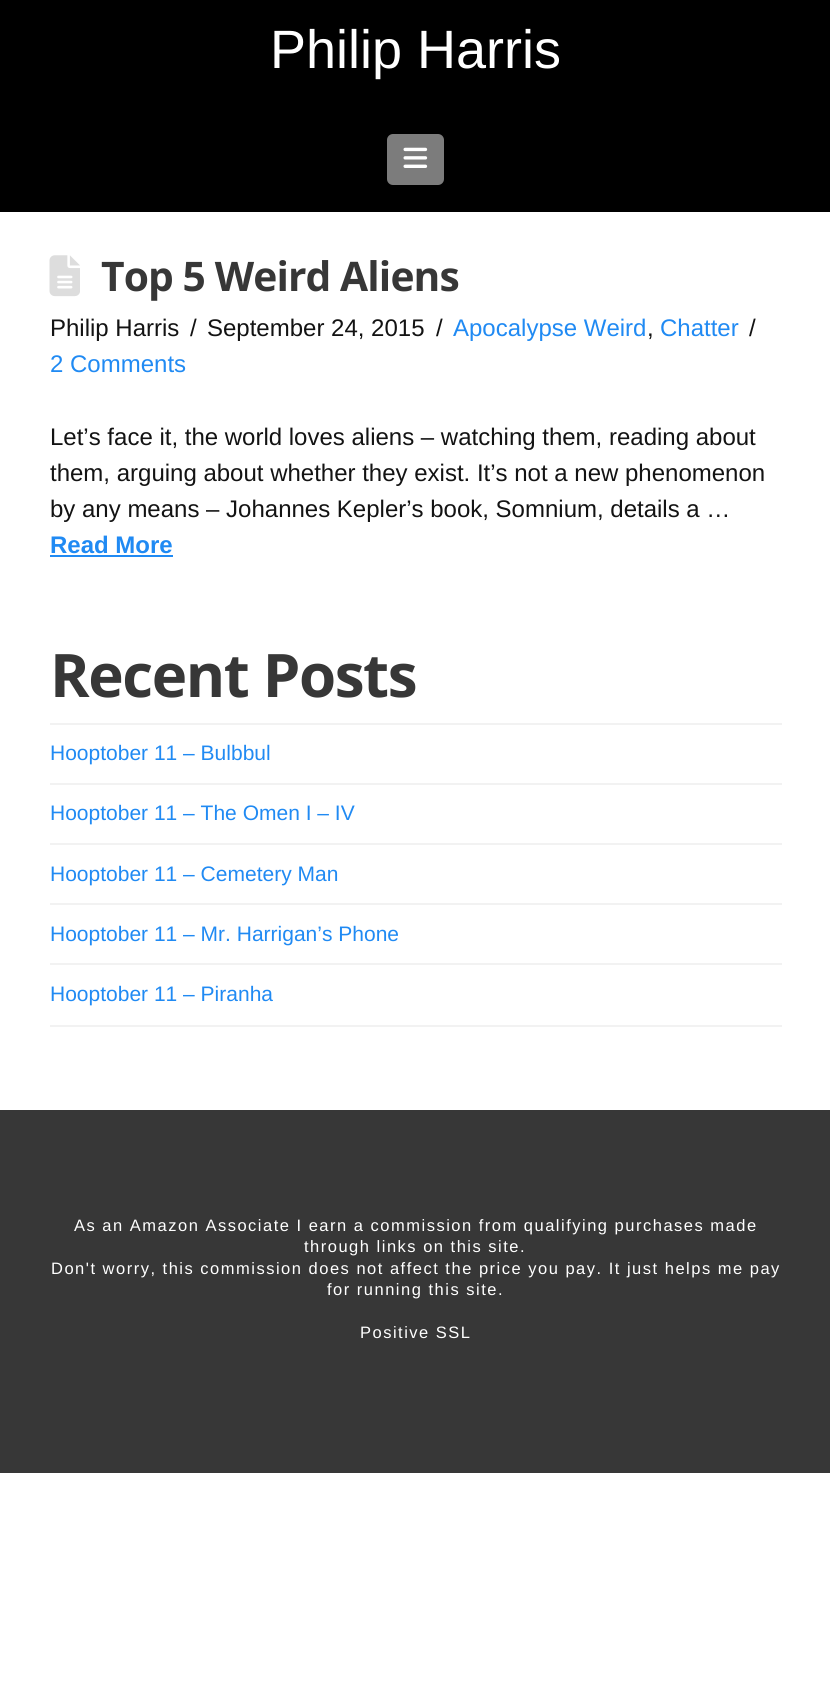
import math
import cairo

surface = cairo.ImageSurface(cairo.FORMAT_RGB24, 830, 1688)
ctx = cairo.Context(surface)
options = cairo.FontOptions()
options.set_hint_metrics(cairo.HINT_METRICS_OFF)
options.set_hint_style(cairo.HINT_STYLE_NONE)
ctx.set_font_options(options)
ctx.set_miter_limit(4)


def spaced_text(x, y, s, letter, word):
    ctx.move_to(x, y)
    for ch in s:
        ctx.show_text(ch)
        ctx.rel_move_to(letter + word * (ch == ' '), 0)


def round_rect(x, y, w, h, r):
    ctx.new_sub_path()
    for i, (u, v) in enumerate([(x + w - r, y + h - r), (x + r, y + h - r), (x + r, y + r), (x + w - r, y + r)]):
        ctx.arc(u, v, r, i * math.pi / 2, (i + 1) * math.pi / 2)
    ctx.close_path()


def picture(path, x, y, w, h):
    ctx.save()
    ctx.set_source_surface(cairo.ImageSurface.create_from_png(path), x, y)
    ctx.rectangle(x, y, w, h)
    ctx.fill()
    ctx.restore()


ctx.set_source_rgb(1, 1, 1)
ctx.paint()
ctx.set_source_rgb(0, 0, 0)
ctx.rectangle(0, 0, 830, 212)
ctx.fill()
ctx.select_font_face("Liberation Sans")
ctx.set_font_size(54)
ctx.set_source_rgb(1, 1, 1)
ctx.move_to(270, 68)
ctx.show_text("Philip Harris")
ctx.set_source_rgb(0.486, 0.486, 0.486)
round_rect(387, 134, 57, 51, 6)
ctx.fill()
picture("img1.png", 403, 147, 25, 21)
picture("img2.png", 49, 255, 31, 42)
ctx.select_font_face("Open Sans", cairo.FONT_SLANT_NORMAL, cairo.FONT_WEIGHT_BOLD)
ctx.set_font_size(40.75)
ctx.set_source_rgb(0.216, 0.216, 0.216)
spaced_text(101, 291, "Top 5 Weird Aliens", -0.9, 0)
ctx.select_font_face("Liberation Sans")
ctx.set_font_size(24)
ctx.set_source_rgb(0.078, 0.078, 0.078)
ctx.move_to(50, 336)
ctx.show_text("Philip Harris")
ctx.move_to(190, 336)
ctx.show_text("/")
ctx.move_to(207, 336)
ctx.show_text("September 24, 2015")
ctx.move_to(436, 336)
ctx.show_text("/")
ctx.set_source_rgb(0.125, 0.541, 0.953)
ctx.move_to(453, 336)
ctx.show_text("Apocalypse Weird")
ctx.set_source_rgb(0.078, 0.078, 0.078)
ctx.move_to(647, 336)
ctx.show_text(",")
ctx.set_source_rgb(0.125, 0.541, 0.953)
ctx.move_to(660, 336)
ctx.show_text("Chatter")
ctx.set_source_rgb(0.078, 0.078, 0.078)
ctx.move_to(749, 336)
ctx.show_text("/")
ctx.set_source_rgb(0.125, 0.541, 0.953)
ctx.move_to(50, 372)
ctx.show_text("2 Comments")
ctx.set_source_rgb(0.078, 0.078, 0.078)
ctx.move_to(50, 445)
ctx.show_text("Let’s face it, the world loves aliens – watching them, reading about")
ctx.move_to(50, 481)
ctx.show_text("them, arguing about whether they exist. It’s not a new phenomenon")
ctx.move_to(50, 517)
ctx.show_text("by any means – Johannes Kepler’s book, Somnium, details a …")
ctx.select_font_face("Liberation Sans", cairo.FONT_SLANT_NORMAL, cairo.FONT_WEIGHT_BOLD)
ctx.set_source_rgb(0.125, 0.541, 0.953)
ctx.move_to(50, 553)
ctx.show_text("Read More")
ctx.rectangle(50, 555, 123, 2)
ctx.fill()
ctx.select_font_face("Open Sans", cairo.FONT_SLANT_NORMAL, cairo.FONT_WEIGHT_BOLD)
ctx.set_font_size(60)
ctx.set_source_rgb(0.216, 0.216, 0.216)
spaced_text(50, 697, "Recent Posts", -1.4, 0)
ctx.set_source_rgb(0.949, 0.949, 0.949)
ctx.rectangle(50, 723, 732, 2)
ctx.fill()
ctx.rectangle(50, 783, 732, 2)
ctx.fill()
ctx.select_font_face("Liberation Sans")
ctx.set_font_size(21)
ctx.set_source_rgb(0.125, 0.541, 0.953)
ctx.move_to(50, 760)
ctx.show_text("Hooptober 11 – Bulbbul")
ctx.set_source_rgb(0.949, 0.949, 0.949)
ctx.rectangle(50, 843, 732, 2)
ctx.fill()
ctx.set_source_rgb(0.125, 0.541, 0.953)
ctx.move_to(50, 820)
ctx.show_text("Hooptober 11 – The Omen I – IV")
ctx.set_source_rgb(0.949, 0.949, 0.949)
ctx.rectangle(50, 903, 732, 2)
ctx.fill()
ctx.set_source_rgb(0.125, 0.541, 0.953)
ctx.move_to(50, 881)
ctx.show_text("Hooptober 11 – Cemetery Man")
ctx.set_source_rgb(0.949, 0.949, 0.949)
ctx.rectangle(50, 963, 732, 2)
ctx.fill()
ctx.set_source_rgb(0.125, 0.541, 0.953)
ctx.move_to(50, 941)
ctx.show_text("Hooptober 11 – Mr. Harrigan’s Phone")
ctx.set_source_rgb(0.949, 0.949, 0.949)
ctx.rectangle(50, 1025, 732, 2)
ctx.fill()
ctx.set_source_rgb(0.125, 0.541, 0.953)
ctx.move_to(50, 1001)
ctx.show_text("Hooptober 11 – Piranha")
ctx.set_source_rgb(0.216, 0.216, 0.216)
ctx.rectangle(0, 1110, 830, 363)
ctx.fill()
ctx.set_font_size(16.5)
ctx.set_source_rgb(1, 1, 1)
spaced_text(74, 1231, "As an Amazon Associate I earn a commission from qualifying purchases made", 1.5, 0)
spaced_text(304, 1252, "through links on this site.", 1.5, 0)
spaced_text(51, 1274, "Don't worry, this commission does not affect the price you pay. It just helps me pay", 1.5, 0)
spaced_text(327, 1295, "for running this site.", 1.5, 0)
spaced_text(360, 1338, "Positive SSL", 1.5, 0)
surface.write_to_png("page.png")
